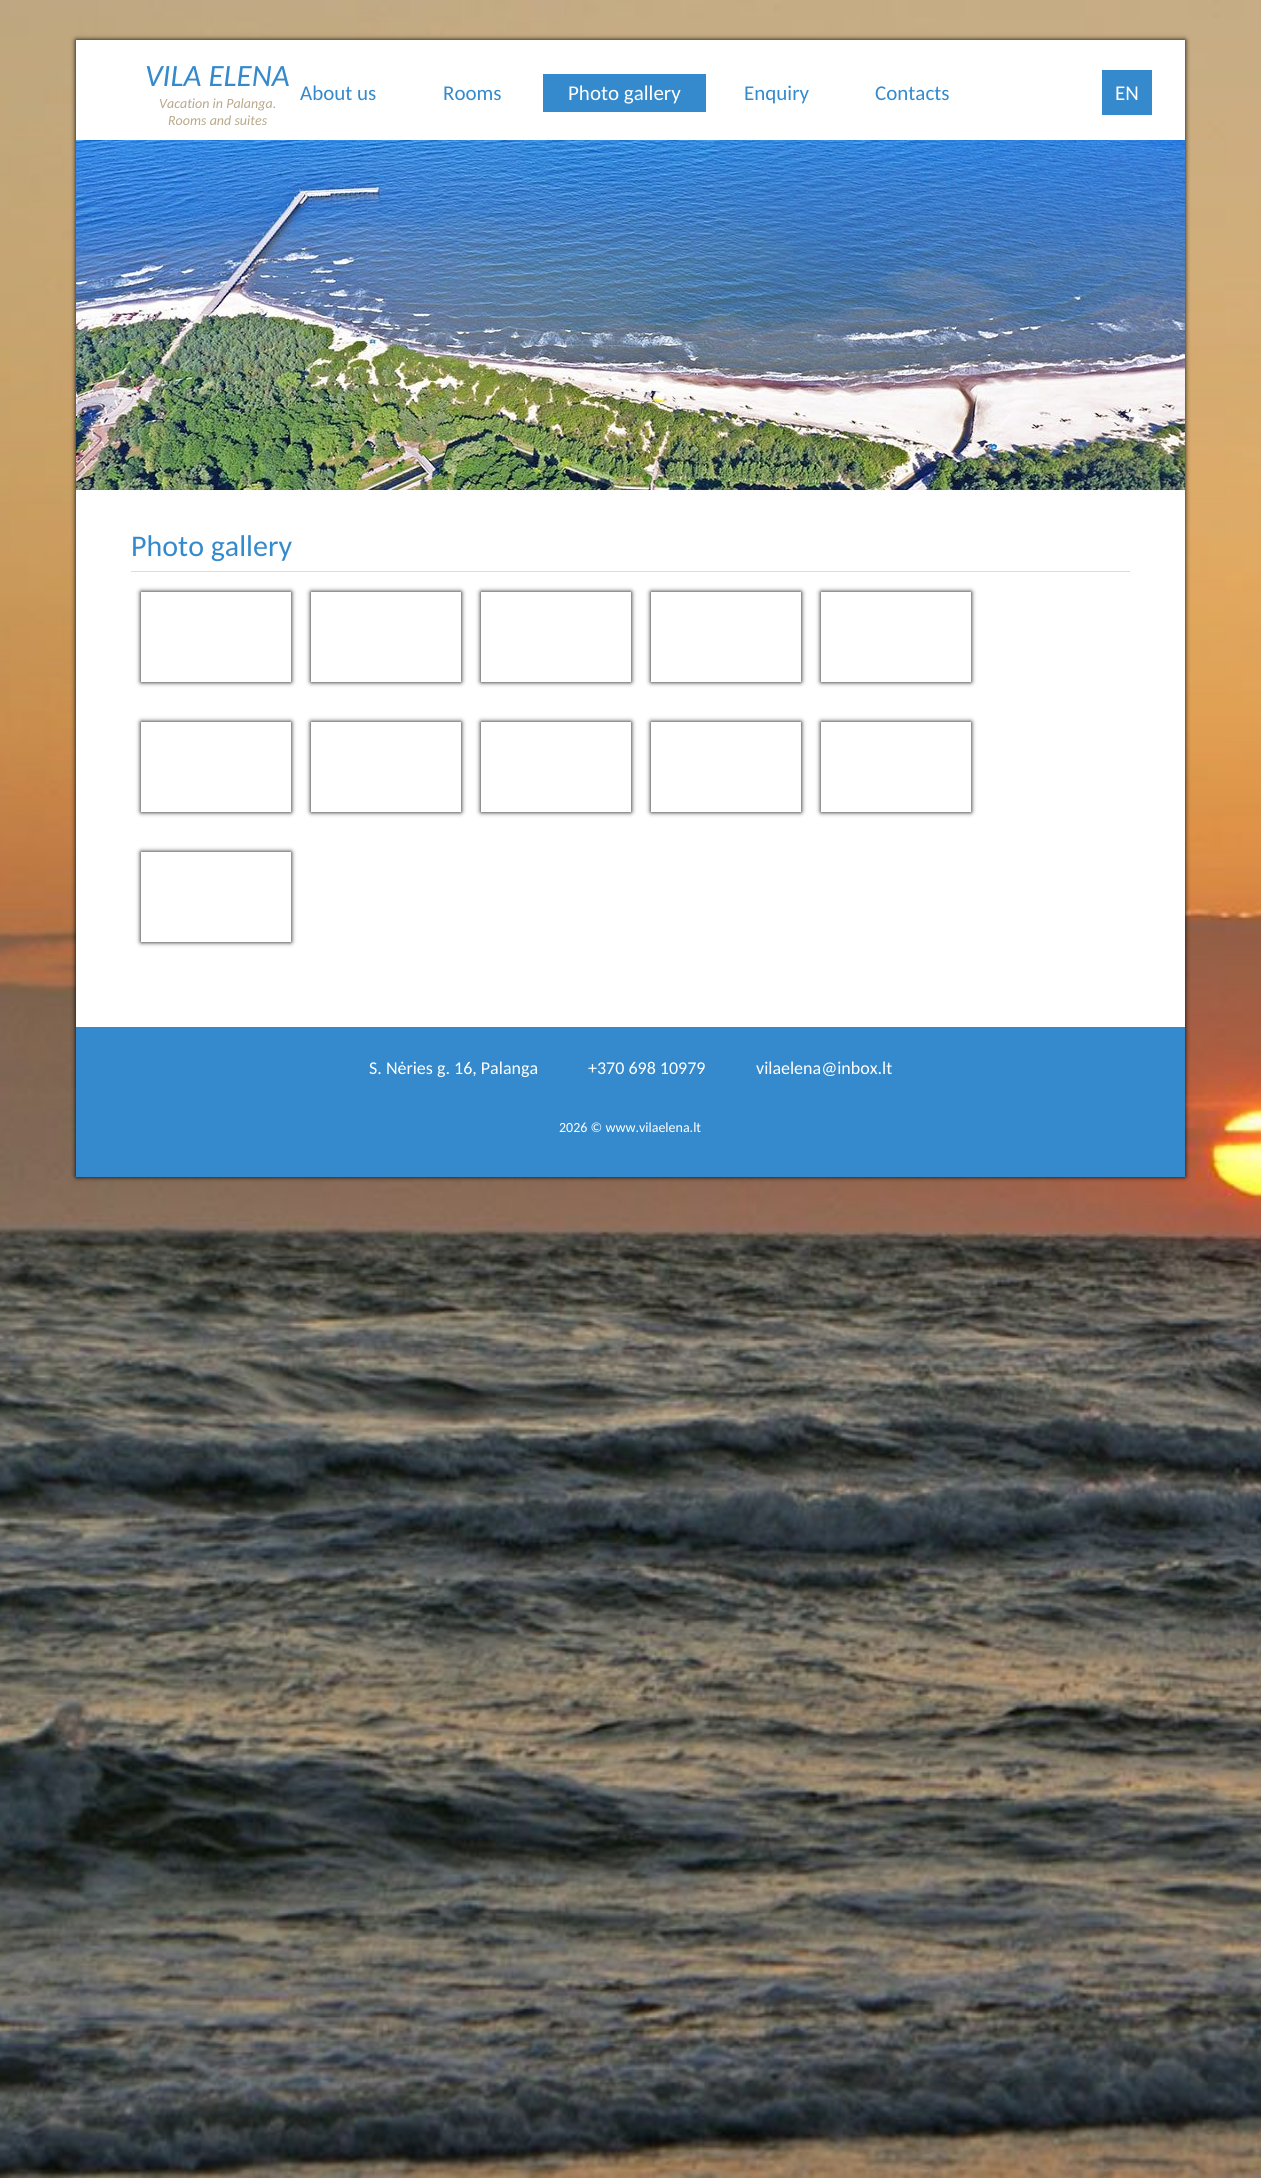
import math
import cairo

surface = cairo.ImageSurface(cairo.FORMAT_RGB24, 1261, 2178)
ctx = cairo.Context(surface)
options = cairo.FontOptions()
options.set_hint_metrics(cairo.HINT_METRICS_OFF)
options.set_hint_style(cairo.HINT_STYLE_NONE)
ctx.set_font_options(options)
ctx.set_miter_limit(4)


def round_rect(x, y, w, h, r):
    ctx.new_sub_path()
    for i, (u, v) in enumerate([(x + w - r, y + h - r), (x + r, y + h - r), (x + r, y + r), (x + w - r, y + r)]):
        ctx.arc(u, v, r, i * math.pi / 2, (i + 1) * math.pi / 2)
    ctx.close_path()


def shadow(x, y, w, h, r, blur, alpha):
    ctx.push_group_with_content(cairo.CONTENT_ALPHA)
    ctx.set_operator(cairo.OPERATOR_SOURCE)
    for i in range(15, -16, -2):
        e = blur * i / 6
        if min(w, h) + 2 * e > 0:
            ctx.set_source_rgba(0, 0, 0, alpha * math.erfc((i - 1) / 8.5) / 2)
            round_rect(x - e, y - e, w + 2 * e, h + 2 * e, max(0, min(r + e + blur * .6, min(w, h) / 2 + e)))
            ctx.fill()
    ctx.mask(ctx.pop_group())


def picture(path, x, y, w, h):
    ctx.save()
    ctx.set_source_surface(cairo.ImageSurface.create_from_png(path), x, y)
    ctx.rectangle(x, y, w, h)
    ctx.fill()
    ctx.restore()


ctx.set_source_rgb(1, 1, 1)
ctx.paint()
picture("img1.png", 0, 0, 1261, 2178)
ctx.set_source_rgb(0, 0, 0)
shadow(76, 40, 1109, 1137, 0, 2.5, 1)
ctx.set_source_rgb(1, 1, 1)
ctx.rectangle(76, 40, 1109, 100)
ctx.fill()
ctx.select_font_face("Carlito", cairo.FONT_SLANT_ITALIC)
ctx.set_font_size(31)
ctx.set_source_rgb(0.204, 0.541, 0.8)
ctx.move_to(145, 86)
ctx.show_text("VILA ELENA")
ctx.set_font_size(14)
ctx.set_source_rgb(0.725, 0.659, 0.541)
ctx.move_to(159, 108)
ctx.show_text("Vacation in Palanga.")
ctx.move_to(168, 125)
ctx.show_text("Rooms and suites")
ctx.select_font_face("Carlito")
ctx.set_font_size(21)
ctx.set_source_rgb(0.204, 0.541, 0.8)
ctx.move_to(300, 100)
ctx.show_text("About us")
ctx.move_to(443, 100)
ctx.show_text("Rooms")
ctx.rectangle(543, 74, 163, 38)
ctx.fill()
ctx.set_source_rgb(1, 1, 1)
ctx.move_to(568, 100)
ctx.show_text("Photo gallery")
ctx.set_source_rgb(0.204, 0.541, 0.8)
ctx.move_to(744, 100)
ctx.show_text("Enquiry")
ctx.move_to(875, 100)
ctx.show_text("Contacts")
ctx.rectangle(1102, 70, 50, 45)
ctx.fill()
ctx.set_source_rgb(1, 1, 1)
ctx.move_to(1115, 100)
ctx.show_text("EN")
picture("img2.png", 76, 140, 1109, 350)
ctx.rectangle(76, 490, 1109, 537)
ctx.fill()
ctx.set_source_rgb(0.867, 0.867, 0.867)
ctx.rectangle(131, 571, 999, 1)
ctx.fill()
ctx.set_font_size(30)
ctx.set_source_rgb(0.204, 0.541, 0.8)
ctx.move_to(131, 556)
ctx.show_text("Photo gallery")
ctx.save()
ctx.set_fill_rule(cairo.FILL_RULE_EVEN_ODD)
ctx.new_path()
ctx.move_to(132, 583)
ctx.line_to(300, 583)
ctx.line_to(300, 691)
ctx.line_to(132, 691)
ctx.close_path()
ctx.move_to(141, 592)
ctx.line_to(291, 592)
ctx.line_to(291, 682)
ctx.line_to(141, 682)
ctx.close_path()
ctx.clip()
ctx.set_source_rgb(0, 0, 0)
shadow(141, 592, 150, 90, 0, 2.5, 1)
ctx.restore()
ctx.save()
ctx.set_fill_rule(cairo.FILL_RULE_EVEN_ODD)
ctx.new_path()
ctx.move_to(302, 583)
ctx.line_to(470, 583)
ctx.line_to(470, 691)
ctx.line_to(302, 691)
ctx.close_path()
ctx.move_to(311, 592)
ctx.line_to(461, 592)
ctx.line_to(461, 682)
ctx.line_to(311, 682)
ctx.close_path()
ctx.clip()
ctx.set_source_rgb(0, 0, 0)
shadow(311, 592, 150, 90, 0, 2.5, 1)
ctx.restore()
ctx.save()
ctx.set_fill_rule(cairo.FILL_RULE_EVEN_ODD)
ctx.new_path()
ctx.move_to(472, 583)
ctx.line_to(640, 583)
ctx.line_to(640, 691)
ctx.line_to(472, 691)
ctx.close_path()
ctx.move_to(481, 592)
ctx.line_to(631, 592)
ctx.line_to(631, 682)
ctx.line_to(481, 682)
ctx.close_path()
ctx.clip()
ctx.set_source_rgb(0, 0, 0)
shadow(481, 592, 150, 90, 0, 2.5, 1)
ctx.restore()
ctx.save()
ctx.set_fill_rule(cairo.FILL_RULE_EVEN_ODD)
ctx.new_path()
ctx.move_to(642, 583)
ctx.line_to(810, 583)
ctx.line_to(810, 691)
ctx.line_to(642, 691)
ctx.close_path()
ctx.move_to(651, 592)
ctx.line_to(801, 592)
ctx.line_to(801, 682)
ctx.line_to(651, 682)
ctx.close_path()
ctx.clip()
ctx.set_source_rgb(0, 0, 0)
shadow(651, 592, 150, 90, 0, 2.5, 1)
ctx.restore()
ctx.save()
ctx.set_fill_rule(cairo.FILL_RULE_EVEN_ODD)
ctx.new_path()
ctx.move_to(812, 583)
ctx.line_to(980, 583)
ctx.line_to(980, 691)
ctx.line_to(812, 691)
ctx.close_path()
ctx.move_to(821, 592)
ctx.line_to(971, 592)
ctx.line_to(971, 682)
ctx.line_to(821, 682)
ctx.close_path()
ctx.clip()
ctx.set_source_rgb(0, 0, 0)
shadow(821, 592, 150, 90, 0, 2.5, 1)
ctx.restore()
ctx.save()
ctx.set_fill_rule(cairo.FILL_RULE_EVEN_ODD)
ctx.new_path()
ctx.move_to(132, 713)
ctx.line_to(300, 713)
ctx.line_to(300, 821)
ctx.line_to(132, 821)
ctx.close_path()
ctx.move_to(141, 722)
ctx.line_to(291, 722)
ctx.line_to(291, 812)
ctx.line_to(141, 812)
ctx.close_path()
ctx.clip()
ctx.set_source_rgb(0, 0, 0)
shadow(141, 722, 150, 90, 0, 2.5, 1)
ctx.restore()
ctx.save()
ctx.set_fill_rule(cairo.FILL_RULE_EVEN_ODD)
ctx.new_path()
ctx.move_to(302, 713)
ctx.line_to(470, 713)
ctx.line_to(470, 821)
ctx.line_to(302, 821)
ctx.close_path()
ctx.move_to(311, 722)
ctx.line_to(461, 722)
ctx.line_to(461, 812)
ctx.line_to(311, 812)
ctx.close_path()
ctx.clip()
ctx.set_source_rgb(0, 0, 0)
shadow(311, 722, 150, 90, 0, 2.5, 1)
ctx.restore()
ctx.save()
ctx.set_fill_rule(cairo.FILL_RULE_EVEN_ODD)
ctx.new_path()
ctx.move_to(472, 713)
ctx.line_to(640, 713)
ctx.line_to(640, 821)
ctx.line_to(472, 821)
ctx.close_path()
ctx.move_to(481, 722)
ctx.line_to(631, 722)
ctx.line_to(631, 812)
ctx.line_to(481, 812)
ctx.close_path()
ctx.clip()
ctx.set_source_rgb(0, 0, 0)
shadow(481, 722, 150, 90, 0, 2.5, 1)
ctx.restore()
ctx.save()
ctx.set_fill_rule(cairo.FILL_RULE_EVEN_ODD)
ctx.new_path()
ctx.move_to(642, 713)
ctx.line_to(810, 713)
ctx.line_to(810, 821)
ctx.line_to(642, 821)
ctx.close_path()
ctx.move_to(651, 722)
ctx.line_to(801, 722)
ctx.line_to(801, 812)
ctx.line_to(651, 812)
ctx.close_path()
ctx.clip()
ctx.set_source_rgb(0, 0, 0)
shadow(651, 722, 150, 90, 0, 2.5, 1)
ctx.restore()
ctx.save()
ctx.set_fill_rule(cairo.FILL_RULE_EVEN_ODD)
ctx.new_path()
ctx.move_to(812, 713)
ctx.line_to(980, 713)
ctx.line_to(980, 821)
ctx.line_to(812, 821)
ctx.close_path()
ctx.move_to(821, 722)
ctx.line_to(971, 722)
ctx.line_to(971, 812)
ctx.line_to(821, 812)
ctx.close_path()
ctx.clip()
ctx.set_source_rgb(0, 0, 0)
shadow(821, 722, 150, 90, 0, 2.5, 1)
ctx.restore()
ctx.save()
ctx.set_fill_rule(cairo.FILL_RULE_EVEN_ODD)
ctx.new_path()
ctx.move_to(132, 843)
ctx.line_to(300, 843)
ctx.line_to(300, 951)
ctx.line_to(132, 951)
ctx.close_path()
ctx.move_to(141, 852)
ctx.line_to(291, 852)
ctx.line_to(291, 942)
ctx.line_to(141, 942)
ctx.close_path()
ctx.clip()
ctx.set_source_rgb(0, 0, 0)
shadow(141, 852, 150, 90, 0, 2.5, 1)
ctx.restore()
ctx.rectangle(76, 1027, 1109, 150)
ctx.fill()
ctx.set_font_size(18)
ctx.set_source_rgb(1, 1, 1)
ctx.move_to(369, 1074)
ctx.show_text("S. Nėries g. 16, Palanga")
ctx.move_to(588, 1074)
ctx.show_text("+370 698 10979")
ctx.move_to(756, 1074)
ctx.show_text("vilaelena@inbox.lt")
ctx.set_font_size(14)
ctx.move_to(559, 1132)
ctx.show_text("2026 © www.vilaelena.lt")
surface.write_to_png("page.png")
